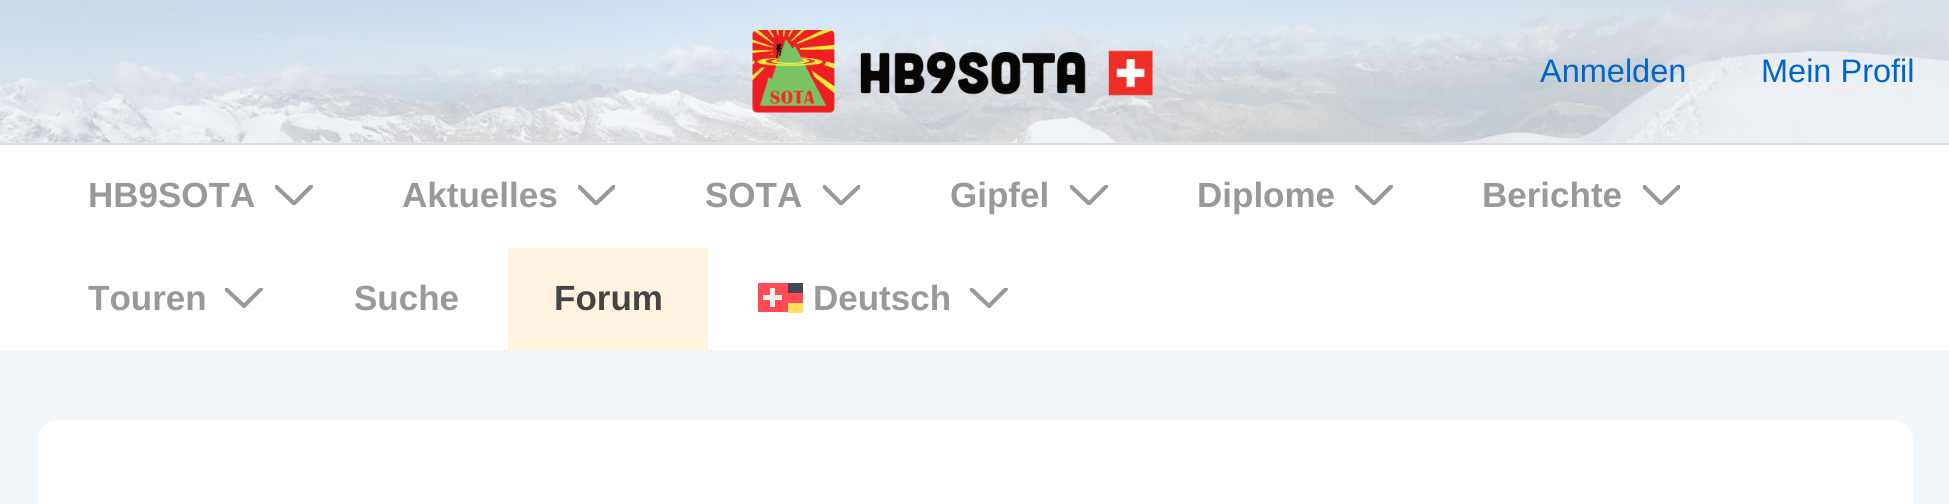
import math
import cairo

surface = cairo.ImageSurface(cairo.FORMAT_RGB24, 1949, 504)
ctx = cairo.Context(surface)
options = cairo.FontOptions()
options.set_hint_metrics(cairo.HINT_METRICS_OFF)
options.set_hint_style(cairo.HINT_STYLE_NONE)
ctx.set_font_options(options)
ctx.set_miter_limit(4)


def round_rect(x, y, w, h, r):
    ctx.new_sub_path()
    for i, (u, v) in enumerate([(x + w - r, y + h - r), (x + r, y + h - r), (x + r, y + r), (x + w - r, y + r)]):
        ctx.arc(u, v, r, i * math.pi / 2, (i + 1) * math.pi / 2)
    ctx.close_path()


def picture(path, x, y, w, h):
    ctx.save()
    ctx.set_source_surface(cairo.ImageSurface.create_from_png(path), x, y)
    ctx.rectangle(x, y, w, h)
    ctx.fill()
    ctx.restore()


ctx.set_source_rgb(0.941, 0.961, 0.98)
ctx.paint()
ctx.set_source_rgb(0.867, 0.867, 0.867)
ctx.rectangle(0, 143, 1949, 2)
ctx.fill()
ctx.set_source_rgb(0.933, 0.933, 0.933)
ctx.rectangle(0, 142, 1949, 1)
ctx.fill()
picture("img1.png", 0, 0, 1949, 143)
picture("img2.png", 752, 30, 401, 83)
ctx.select_font_face("Liberation Sans")
ctx.set_font_size(32.5)
ctx.set_source_rgb(0, 0.4, 0.8)
ctx.move_to(1540, 82)
ctx.show_text("Anmelden")
ctx.move_to(1761, 82)
ctx.show_text("Mein Profil")
ctx.set_source_rgb(1, 1, 1)
ctx.rectangle(0, 145, 1949, 205)
ctx.fill()
ctx.select_font_face("Liberation Sans", cairo.FONT_SLANT_NORMAL, cairo.FONT_WEIGHT_BOLD)
ctx.set_font_size(35)
ctx.set_source_rgb(0.6, 0.6, 0.6)
ctx.move_to(88, 207)
ctx.show_text("HB9SOTA")
ctx.save()
ctx.rectangle(275, 185, 38, 20)
ctx.clip()
ctx.new_path()
ctx.move_to(276, 186.5)
ctx.line_to(294, 203.5)
ctx.line_to(311, 186.5)
ctx.set_line_width(4.1)
ctx.set_line_cap(cairo.LINE_CAP_ROUND)
ctx.stroke()
ctx.restore()
ctx.move_to(402, 207)
ctx.show_text("Aktuelles")
ctx.save()
ctx.rectangle(578, 185, 37, 20)
ctx.clip()
ctx.new_path()
ctx.move_to(579, 186.5)
ctx.line_to(596, 203.5)
ctx.line_to(614, 186.5)
ctx.set_line_width(4.1)
ctx.set_line_cap(cairo.LINE_CAP_ROUND)
ctx.stroke()
ctx.restore()
ctx.move_to(705, 207)
ctx.show_text("SOTA")
ctx.save()
ctx.rectangle(823, 185, 37, 20)
ctx.clip()
ctx.new_path()
ctx.move_to(824, 186.5)
ctx.line_to(841, 203.5)
ctx.line_to(859, 186.5)
ctx.set_line_width(4.1)
ctx.set_line_cap(cairo.LINE_CAP_ROUND)
ctx.stroke()
ctx.restore()
ctx.move_to(950, 207)
ctx.show_text("Gipfel")
ctx.save()
ctx.rectangle(1070, 185, 38, 20)
ctx.clip()
ctx.new_path()
ctx.move_to(1071, 186.5)
ctx.line_to(1089, 203.5)
ctx.line_to(1106, 186.5)
ctx.set_line_width(4.1)
ctx.set_line_cap(cairo.LINE_CAP_ROUND)
ctx.stroke()
ctx.restore()
ctx.move_to(1197, 207)
ctx.show_text("Diplome")
ctx.save()
ctx.rectangle(1355, 185, 38, 20)
ctx.clip()
ctx.new_path()
ctx.move_to(1356, 186.5)
ctx.line_to(1374, 203.5)
ctx.line_to(1391, 186.5)
ctx.set_line_width(4.1)
ctx.set_line_cap(cairo.LINE_CAP_ROUND)
ctx.stroke()
ctx.restore()
ctx.move_to(1482, 207)
ctx.show_text("Berichte")
ctx.save()
ctx.rectangle(1643, 185, 37, 20)
ctx.clip()
ctx.new_path()
ctx.move_to(1644, 186.5)
ctx.line_to(1661, 203.5)
ctx.line_to(1679, 186.5)
ctx.set_line_width(4.1)
ctx.set_line_cap(cairo.LINE_CAP_ROUND)
ctx.stroke()
ctx.restore()
ctx.move_to(88, 310)
ctx.show_text("Touren")
ctx.save()
ctx.rectangle(225, 288, 38, 20)
ctx.clip()
ctx.new_path()
ctx.move_to(226, 289)
ctx.line_to(244, 306)
ctx.line_to(261, 289)
ctx.set_line_width(4.1)
ctx.set_line_cap(cairo.LINE_CAP_ROUND)
ctx.stroke()
ctx.restore()
ctx.move_to(354, 310)
ctx.show_text("Suche")
ctx.set_source_rgb(1, 0.953, 0.878)
ctx.rectangle(508, 248, 200, 102)
ctx.fill()
ctx.set_source_rgb(0.267, 0.267, 0.267)
ctx.move_to(554, 310)
ctx.show_text("Forum")
ctx.set_source_rgb(1, 0.294, 0.333)
ctx.rectangle(758, 283, 30, 29)
ctx.fill()
ctx.set_source_rgb(0.941, 0.941, 0.941)
ctx.rectangle(763, 295, 19, 5)
ctx.fill()
ctx.rectangle(770, 288, 5, 19)
ctx.fill()
ctx.set_source_rgb(1, 0.294, 0.333)
ctx.rectangle(788, 293, 15, 10)
ctx.fill()
ctx.set_source_rgb(1, 0.882, 0.353)
ctx.rectangle(788, 303, 15, 10)
ctx.fill()
ctx.set_source_rgb(0.275, 0.275, 0.333)
ctx.rectangle(788, 283, 15, 10)
ctx.fill()
ctx.set_source_rgb(0.6, 0.6, 0.6)
ctx.move_to(813, 310)
ctx.show_text("Deutsch")
ctx.save()
ctx.rectangle(970, 288, 38, 20)
ctx.clip()
ctx.new_path()
ctx.move_to(971, 289)
ctx.line_to(989, 306)
ctx.line_to(1006, 289)
ctx.set_line_width(4.1)
ctx.set_line_cap(cairo.LINE_CAP_ROUND)
ctx.stroke()
ctx.restore()
ctx.set_source_rgb(1, 1, 1)
round_rect(38, 420, 1875, 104, 20)
ctx.fill()
surface.write_to_png("page.png")
